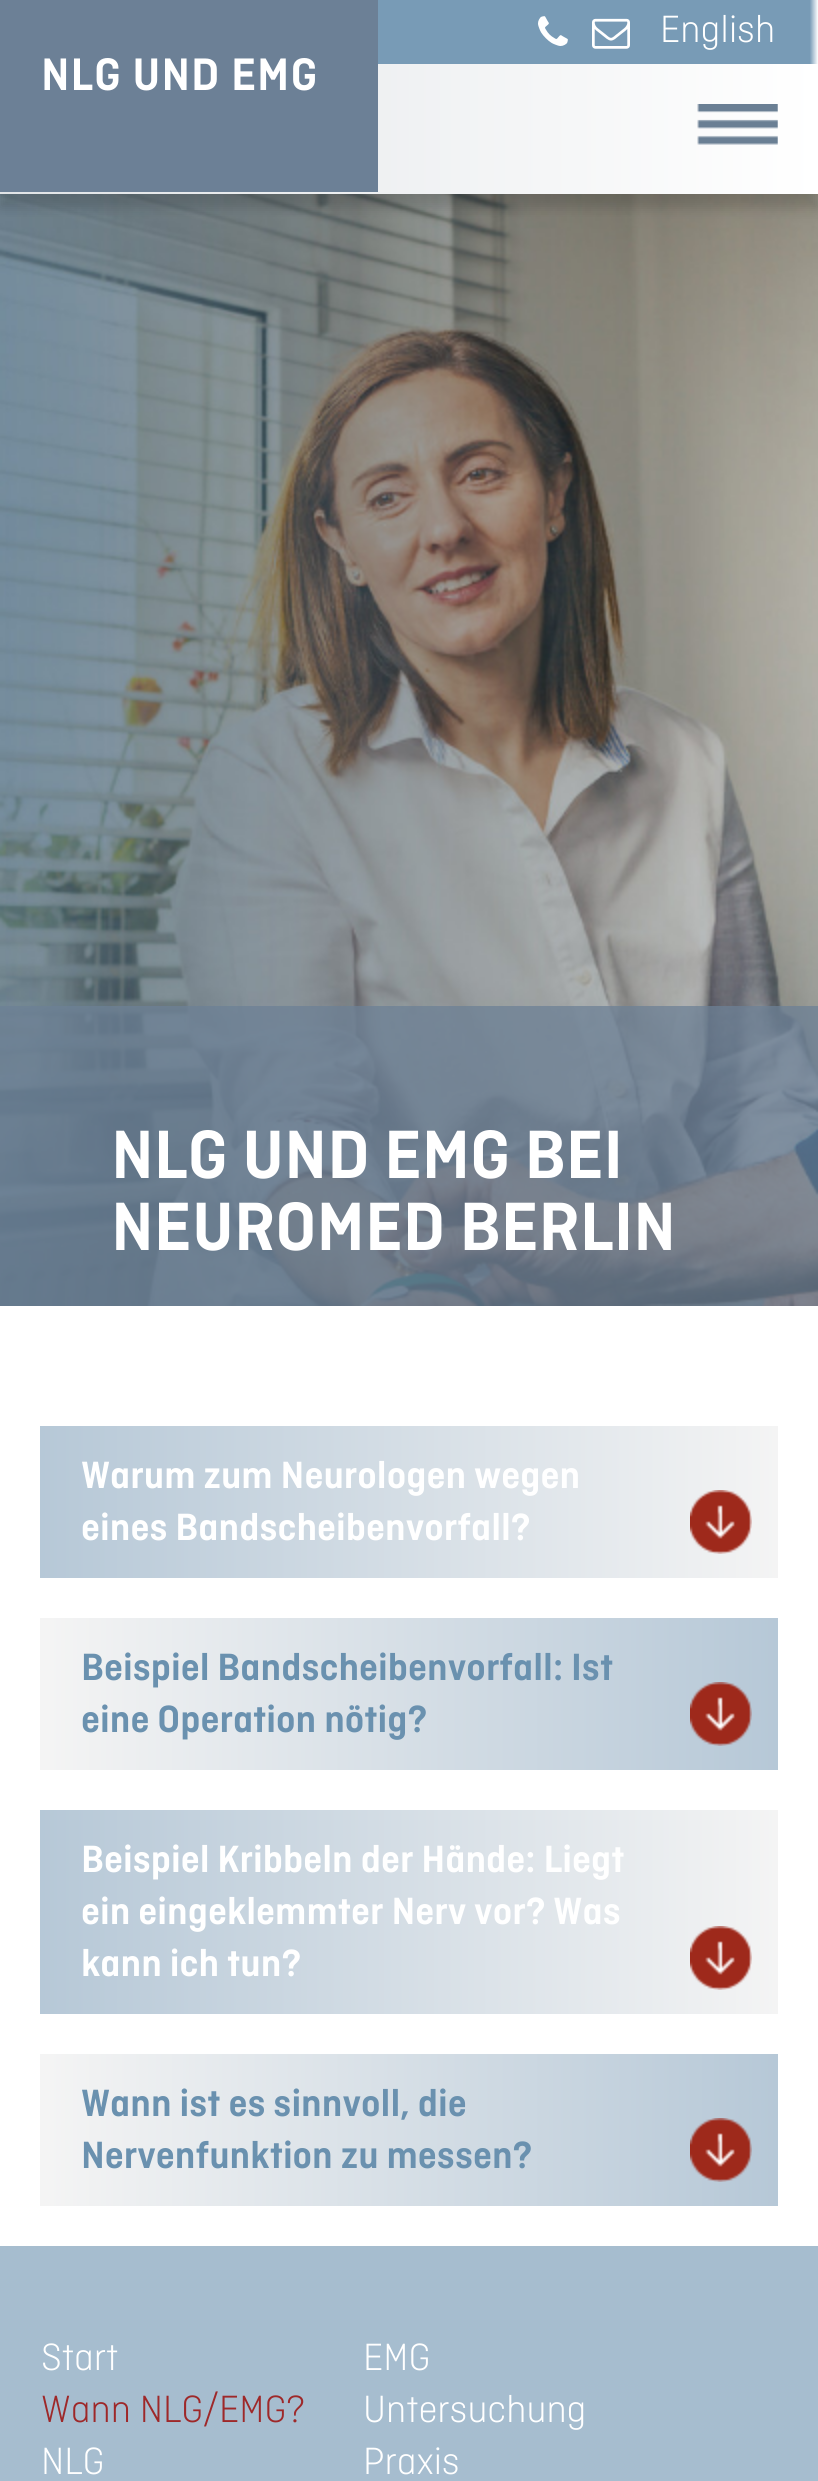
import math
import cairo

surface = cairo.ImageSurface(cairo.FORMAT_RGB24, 818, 2481)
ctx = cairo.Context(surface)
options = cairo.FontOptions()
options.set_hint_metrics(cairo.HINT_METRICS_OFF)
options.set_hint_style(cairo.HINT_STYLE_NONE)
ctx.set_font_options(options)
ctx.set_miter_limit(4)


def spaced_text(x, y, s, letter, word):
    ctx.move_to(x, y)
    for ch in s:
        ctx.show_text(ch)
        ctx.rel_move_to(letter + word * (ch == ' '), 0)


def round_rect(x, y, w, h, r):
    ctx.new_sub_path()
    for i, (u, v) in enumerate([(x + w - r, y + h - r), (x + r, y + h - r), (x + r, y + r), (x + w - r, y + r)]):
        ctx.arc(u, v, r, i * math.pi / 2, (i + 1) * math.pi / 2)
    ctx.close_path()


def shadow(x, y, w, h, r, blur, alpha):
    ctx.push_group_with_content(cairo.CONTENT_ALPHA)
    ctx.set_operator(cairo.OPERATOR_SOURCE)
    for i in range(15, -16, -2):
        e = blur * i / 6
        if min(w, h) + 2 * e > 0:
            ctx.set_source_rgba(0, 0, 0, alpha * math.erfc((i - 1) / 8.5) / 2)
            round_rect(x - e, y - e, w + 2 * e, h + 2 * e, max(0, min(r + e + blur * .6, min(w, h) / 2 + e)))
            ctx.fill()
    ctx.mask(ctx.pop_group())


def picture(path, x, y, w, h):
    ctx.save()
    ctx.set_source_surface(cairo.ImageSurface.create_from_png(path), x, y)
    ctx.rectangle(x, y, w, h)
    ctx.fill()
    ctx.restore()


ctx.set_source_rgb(1, 1, 1)
ctx.paint()
gradient = cairo.LinearGradient(0, 33, 818, 33)
gradient.add_color_stop_rgba(0.99, 0.471, 0.608, 0.714, 1)
gradient.add_color_stop_rgba(1, 1, 1, 1, 1)
ctx.set_source(gradient)
ctx.rectangle(378, 0, 440, 64)
ctx.fill()
picture("img1.png", 538, 16, 30, 30)
picture("img2.png", 592, 18, 38, 31)
ctx.select_font_face("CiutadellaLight")
ctx.set_font_size(40)
ctx.set_source_rgb(1, 1, 1)
ctx.move_to(660, 42)
ctx.show_text("English")
picture("img4.png", 0, 194, 818, 1112)
ctx.set_source_rgb(0, 0, 0)
shadow(0, 78, 818, 130, 0, 6, 0.15)
gradient = cairo.LinearGradient(0, 129, 818, 129)
gradient.add_color_stop_rgba(0, 0.882, 0.894, 0.906, 1)
gradient.add_color_stop_rgba(1, 1, 1, 1, 1)
ctx.set_source(gradient)
ctx.rectangle(0, 64, 818, 130)
ctx.fill()
ctx.set_source_rgb(0.424, 0.502, 0.588)
ctx.rectangle(0, 0, 378, 192)
ctx.fill()
ctx.select_font_face("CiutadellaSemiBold")
ctx.set_font_size(48)
ctx.set_source_rgb(1, 1, 1)
spaced_text(41, 90, "NLG UND EMG", 1, 0)
picture("img3.png", 697, 104, 81, 41)
ctx.set_source_rgba(0.424, 0.502, 0.588, 0.75)
ctx.rectangle(0, 1006, 818, 300)
ctx.fill()
ctx.set_font_size(72)
ctx.set_source_rgb(1, 1, 1)
ctx.move_to(111, 1178)
ctx.show_text("NLG UND EMG BEI")
ctx.move_to(111, 1250)
ctx.show_text("NEUROMED BERLIN")
gradient = cairo.LinearGradient(40, 1502, 778, 1502)
gradient.add_color_stop_rgba(0, 0.714, 0.784, 0.843, 1)
gradient.add_color_stop_rgba(1, 0.957, 0.957, 0.957, 1)
ctx.set_source(gradient)
ctx.rectangle(40, 1426, 738, 152)
ctx.fill()
ctx.set_font_size(40)
ctx.set_source_rgb(1, 1, 1)
ctx.move_to(81, 1488)
ctx.show_text("Warum zum Neurologen wegen")
ctx.move_to(81, 1540)
ctx.show_text("eines Bandscheibenvorfall?")
picture("img5.png", 690, 1490, 62, 64)
gradient = cairo.LinearGradient(40, 1694, 778, 1694)
gradient.add_color_stop_rgba(0.01, 0.957, 0.957, 0.957, 1)
gradient.add_color_stop_rgba(1, 0.714, 0.784, 0.843, 1)
ctx.set_source(gradient)
ctx.rectangle(40, 1618, 738, 152)
ctx.fill()
ctx.set_source_rgb(0.416, 0.569, 0.686)
ctx.move_to(81, 1680)
ctx.show_text("Beispiel Bandscheibenvorfall: Ist")
ctx.move_to(81, 1732)
ctx.show_text("eine Operation nötig?")
picture("img6.png", 690, 1682, 62, 64)
gradient = cairo.LinearGradient(40, 1912, 778, 1912)
gradient.add_color_stop_rgba(0, 0.714, 0.784, 0.843, 1)
gradient.add_color_stop_rgba(1, 0.957, 0.957, 0.957, 1)
ctx.set_source(gradient)
ctx.rectangle(40, 1810, 738, 204)
ctx.fill()
ctx.set_source_rgb(1, 1, 1)
ctx.move_to(81, 1872)
ctx.show_text("Beispiel Kribbeln der Hände: Liegt")
ctx.move_to(81, 1924)
ctx.show_text("ein eingeklemmter Nerv vor? Was")
ctx.move_to(81, 1976)
ctx.show_text("kann ich tun?")
picture("img5.png", 690, 1926, 62, 64)
gradient = cairo.LinearGradient(40, 2130, 778, 2130)
gradient.add_color_stop_rgba(0.01, 0.957, 0.957, 0.957, 1)
gradient.add_color_stop_rgba(1, 0.714, 0.784, 0.843, 1)
ctx.set_source(gradient)
ctx.rectangle(40, 2054, 738, 152)
ctx.fill()
ctx.set_source_rgb(0.416, 0.569, 0.686)
ctx.move_to(81, 2116)
ctx.show_text("Wann ist es sinnvoll, die")
ctx.move_to(81, 2168)
ctx.show_text("Nervenfunktion zu messen?")
picture("img6.png", 690, 2118, 62, 64)
ctx.set_source_rgb(0.651, 0.741, 0.812)
ctx.rectangle(0, 2246, 818, 235)
ctx.fill()
ctx.select_font_face("CiutadellaLight")
ctx.set_source_rgb(1, 1, 1)
ctx.move_to(41, 2370)
ctx.show_text("Start")
ctx.set_source_rgb(0.62, 0.157, 0.161)
ctx.move_to(41, 2422)
ctx.show_text("Wann NLG/EMG?")
ctx.set_source_rgb(1, 1, 1)
ctx.move_to(41, 2474)
ctx.show_text("NLG")
ctx.move_to(363, 2370)
ctx.show_text("EMG")
ctx.move_to(363, 2422)
ctx.show_text("Untersuchung")
ctx.move_to(363, 2474)
ctx.show_text("Praxis")
surface.write_to_png("page.png")
